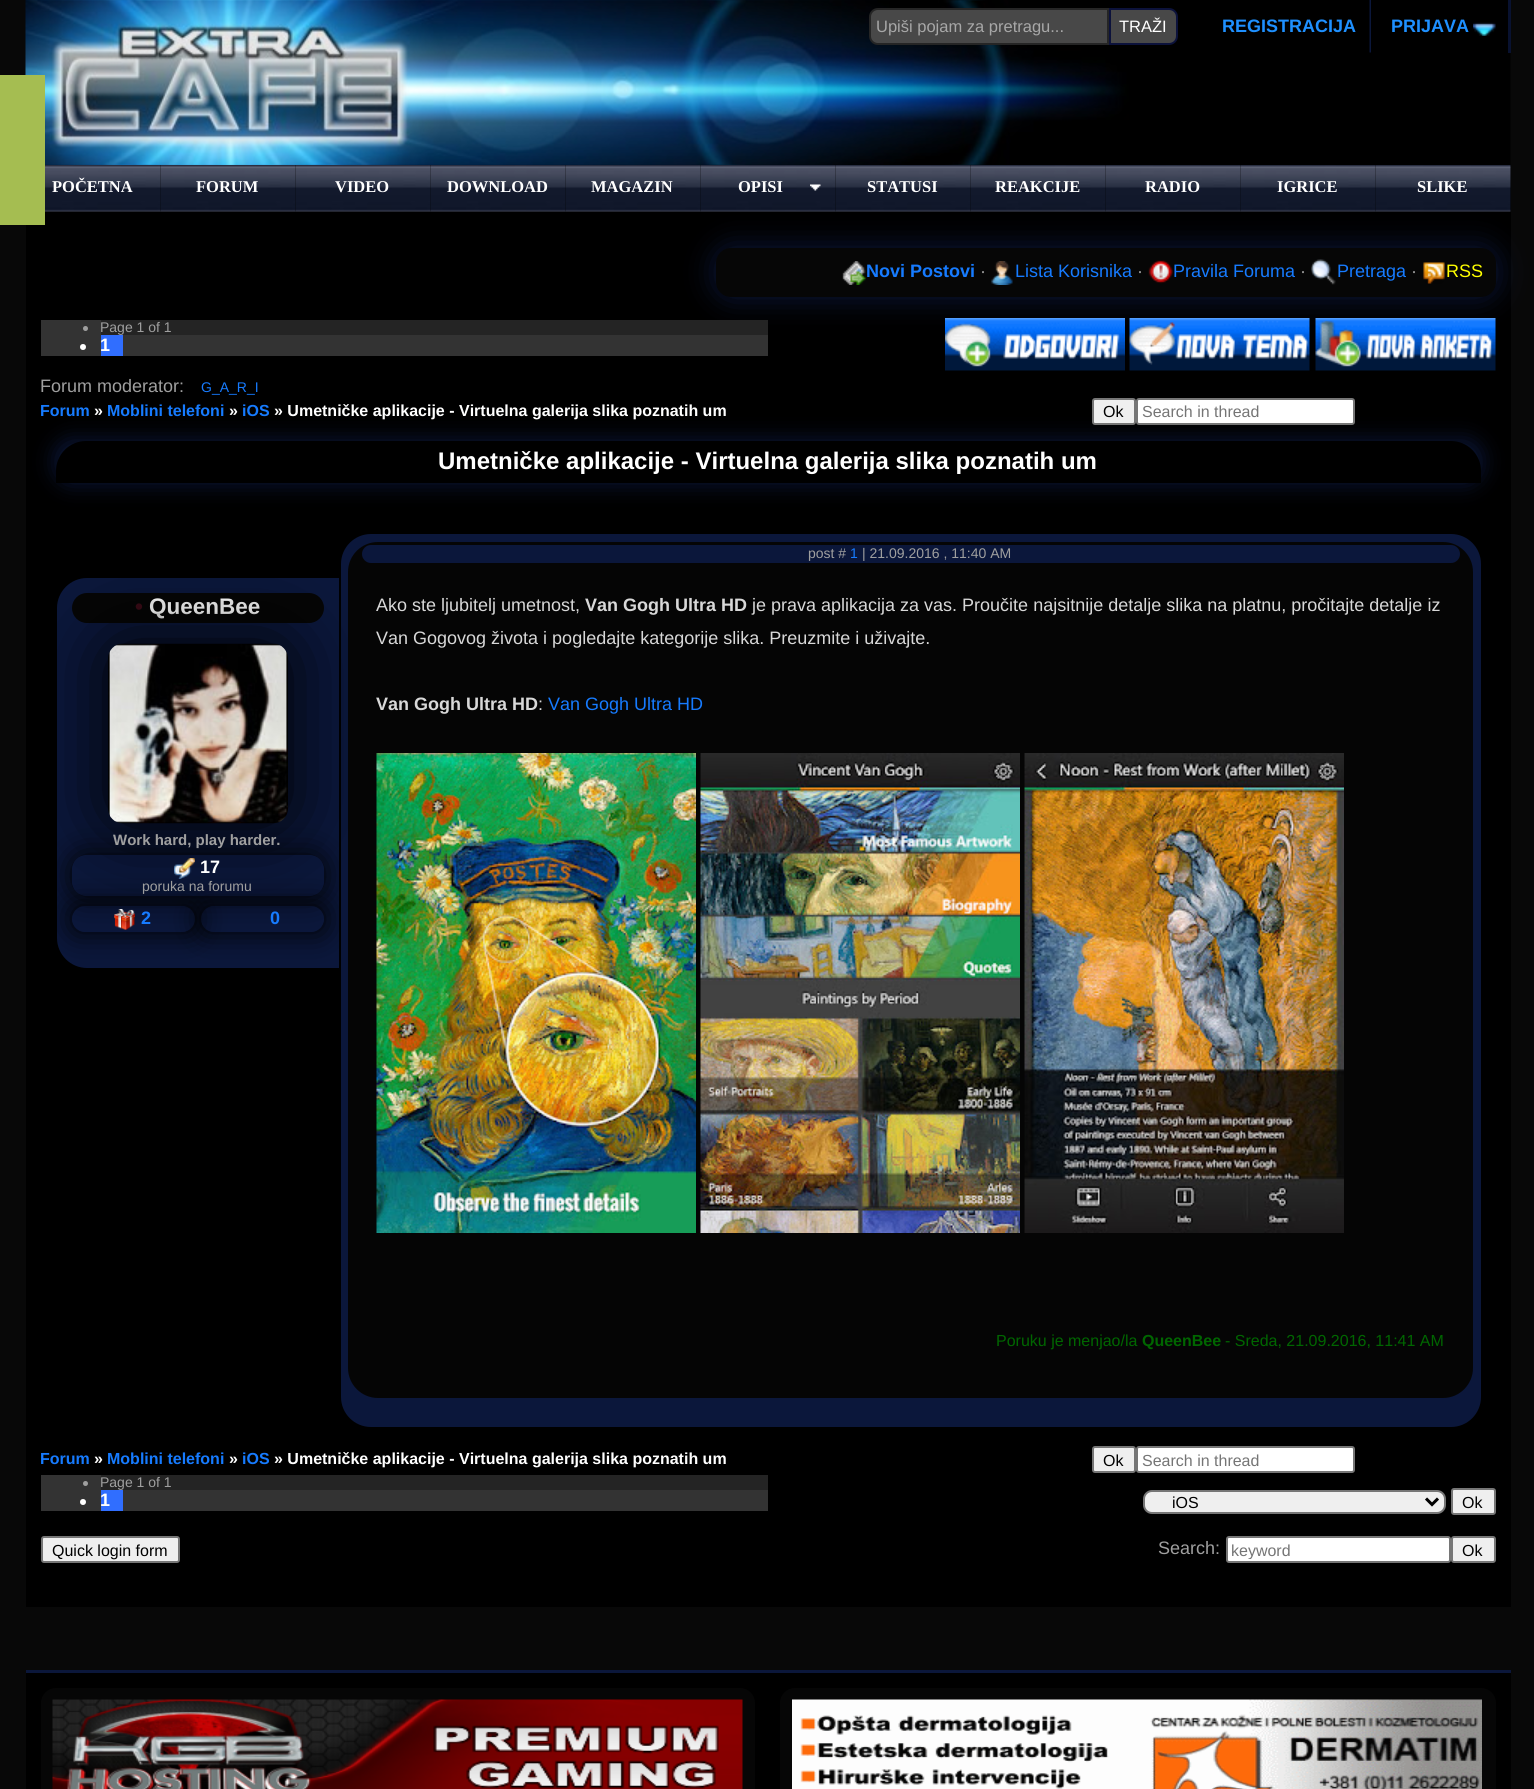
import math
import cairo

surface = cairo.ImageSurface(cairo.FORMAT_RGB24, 1534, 1789)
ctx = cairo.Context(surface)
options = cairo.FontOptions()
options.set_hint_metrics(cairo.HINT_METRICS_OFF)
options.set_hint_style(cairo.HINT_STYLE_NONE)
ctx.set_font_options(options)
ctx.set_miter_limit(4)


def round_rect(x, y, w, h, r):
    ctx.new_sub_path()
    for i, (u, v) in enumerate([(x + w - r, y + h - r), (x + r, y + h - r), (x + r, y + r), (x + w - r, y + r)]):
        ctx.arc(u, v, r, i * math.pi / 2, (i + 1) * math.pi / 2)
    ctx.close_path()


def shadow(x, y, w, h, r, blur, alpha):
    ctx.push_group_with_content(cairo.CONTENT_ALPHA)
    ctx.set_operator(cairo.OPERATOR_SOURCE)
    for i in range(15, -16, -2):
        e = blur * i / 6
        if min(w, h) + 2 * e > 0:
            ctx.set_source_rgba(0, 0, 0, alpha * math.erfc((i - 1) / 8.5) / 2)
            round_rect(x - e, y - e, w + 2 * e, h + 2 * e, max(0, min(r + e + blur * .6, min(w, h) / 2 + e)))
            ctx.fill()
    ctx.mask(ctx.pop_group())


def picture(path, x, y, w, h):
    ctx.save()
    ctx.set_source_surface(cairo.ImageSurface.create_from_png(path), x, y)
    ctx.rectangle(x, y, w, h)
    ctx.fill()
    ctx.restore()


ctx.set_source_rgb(0.035, 0.035, 0.035)
ctx.paint()
picture("img1.png", 25, 0, 1486, 165)
ctx.set_source_rgb(0, 0, 0)
ctx.rectangle(26, 212, 1485, 1395)
ctx.fill()
ctx.set_source_rgb(0.647, 0.741, 0.318)
ctx.rectangle(0, 75, 45, 150)
ctx.fill()
ctx.set_source_rgb(0.282, 0.282, 0.282)
ctx.new_path()
ctx.move_to(878, 9)
ctx.line_to(1108, 9)
ctx.line_to(1108, 44)
ctx.line_to(878, 44)
ctx.curve_to(873.5, 44, 870, 40.5, 870, 36)
ctx.line_to(870, 17)
ctx.curve_to(870, 12.5, 873.5, 9, 878, 9)
ctx.close_path()
ctx.fill_preserve()
ctx.set_source_rgb(0.145, 0.145, 0.145)
ctx.stroke()
ctx.select_font_face("Liberation Sans")
ctx.set_font_size(16.5)
ctx.set_source_rgb(0.655, 0.655, 0.655)
ctx.move_to(876, 32)
ctx.show_text("Upiši pojam za pretragu...")
ctx.set_source_rgb(0.282, 0.282, 0.282)
ctx.new_path()
ctx.move_to(1110, 9)
ctx.line_to(1169, 9)
ctx.curve_to(1173.5, 9, 1177, 12.5, 1177, 17)
ctx.line_to(1177, 36)
ctx.curve_to(1177, 40.5, 1173.5, 44, 1169, 44)
ctx.line_to(1110, 44)
ctx.close_path()
ctx.fill_preserve()
ctx.set_source_rgb(0.047, 0.071, 0.231)
ctx.stroke()
ctx.set_source_rgb(1, 1, 1)
ctx.move_to(1119, 32)
ctx.show_text("TRAŽI")
picture("img2.png", 1369, 0, 2, 53)
ctx.select_font_face("Liberation Sans", cairo.FONT_SLANT_NORMAL, cairo.FONT_WEIGHT_BOLD)
ctx.set_font_size(18)
ctx.set_source_rgb(0.118, 0.565, 1)
ctx.move_to(1222, 32)
ctx.show_text("REGISTRACIJA")
ctx.set_source_rgba(0.039, 0.086, 0.227, 0.81)
ctx.rectangle(1508, 0, 3, 53)
ctx.fill()
picture("img3.png", 1473, 22, 23, 14)
ctx.set_source_rgb(0.118, 0.565, 1)
ctx.move_to(1391, 32)
ctx.show_text("PRIJAVA")
ctx.set_source_rgb(0.043, 0.09, 0.231)
shadow(716, 248, 780, 49, 15, 15, 1)
ctx.set_source_rgb(0, 0, 0)
ctx.rectangle(45, 165, 1466, 47)
ctx.fill()
picture("img4.png", 45, 165, 116, 47)
ctx.select_font_face("Liberation Serif", cairo.FONT_SLANT_NORMAL, cairo.FONT_WEIGHT_BOLD)
ctx.set_font_size(16.5)
ctx.set_source_rgb(1, 1, 1)
ctx.move_to(52, 192)
ctx.show_text("POČETNA")
picture("img5.png", 160, 165, 136, 47)
ctx.move_to(196, 192)
ctx.show_text("FORUM")
picture("img6.png", 295, 165, 136, 47)
ctx.move_to(335, 192)
ctx.show_text("VIDEO")
picture("img7.png", 430, 165, 136, 47)
ctx.move_to(447, 192)
ctx.show_text("DOWNLOAD")
picture("img8.png", 565, 165, 136, 47)
ctx.move_to(591, 192)
ctx.show_text("MAGAZIN")
picture("img9.png", 700, 165, 136, 47)
picture("img10.png", 810, 184, 11, 7)
ctx.move_to(738, 192)
ctx.show_text("OPISI")
picture("img11.png", 835, 165, 136, 47)
ctx.move_to(867, 192)
ctx.show_text("STATUSI")
picture("img12.png", 970, 165, 136, 47)
ctx.move_to(995, 192)
ctx.show_text("REAKCIJE")
picture("img13.png", 1105, 165, 136, 47)
ctx.move_to(1145, 192)
ctx.show_text("RADIO")
picture("img14.png", 1240, 165, 136, 47)
ctx.move_to(1277, 192)
ctx.show_text("IGRICE")
picture("img15.png", 1375, 165, 136, 47)
ctx.move_to(1417, 192)
ctx.show_text("SLIKE")
ctx.set_source_rgb(0.027, 0.027, 0.027)
round_rect(716, 248, 780, 49, 15)
ctx.fill()
picture("img16.png", 842, 261, 24, 24)
ctx.select_font_face("Liberation Sans", cairo.FONT_SLANT_NORMAL, cairo.FONT_WEIGHT_BOLD)
ctx.set_font_size(18)
ctx.set_source_rgb(0.086, 0.482, 1)
ctx.move_to(866, 277)
ctx.show_text("Novi Postovi")
ctx.select_font_face("Liberation Sans")
ctx.set_source_rgb(0.624, 0.624, 0.624)
ctx.move_to(980, 277)
ctx.show_text("·")
picture("img17.png", 991, 261, 22, 24)
ctx.set_source_rgb(0.086, 0.482, 1)
ctx.move_to(1015, 277)
ctx.show_text("Lista Korisnika")
ctx.set_source_rgb(0.624, 0.624, 0.624)
ctx.move_to(1137, 277)
ctx.show_text("·")
picture("img18.png", 1148, 260, 25, 24)
ctx.set_source_rgb(0.086, 0.482, 1)
ctx.move_to(1173, 277)
ctx.show_text("Pravila Foruma")
ctx.set_source_rgb(0.624, 0.624, 0.624)
ctx.move_to(1300, 277)
ctx.show_text("·")
picture("img19.png", 1311, 259, 25, 26)
ctx.set_source_rgb(0.086, 0.482, 1)
ctx.move_to(1337, 277)
ctx.show_text("Pretraga")
ctx.set_source_rgb(0.624, 0.624, 0.624)
ctx.move_to(1411, 277)
ctx.show_text("·")
picture("img20.png", 1423, 262, 22, 22)
ctx.set_source_rgb(1, 1, 0)
ctx.move_to(1446, 277)
ctx.show_text("RSS")
ctx.set_source_rgb(0.2, 0.2, 0.2)
ctx.rectangle(41, 320, 727, 36)
ctx.fill()
ctx.set_source_rgb(0.141, 0.141, 0.141)
ctx.rectangle(101, 320, 667, 15)
ctx.fill()
ctx.set_source_rgb(0.624, 0.624, 0.624)
ctx.arc(85.5, 328.5, 2.5, 0, 2 * math.pi)
ctx.fill()
ctx.set_font_size(14)
ctx.move_to(100, 332)
ctx.show_text("Page 1 of 1")
ctx.set_source_rgb(0.188, 0.431, 1)
ctx.rectangle(101, 335, 22, 21)
ctx.fill()
ctx.set_source_rgb(1, 1, 1)
ctx.arc(83, 347, 3, 0, 2 * math.pi)
ctx.fill()
ctx.select_font_face("Liberation Sans", cairo.FONT_SLANT_NORMAL, cairo.FONT_WEIGHT_BOLD)
ctx.set_font_size(18)
ctx.move_to(100, 351)
ctx.show_text("1")
picture("img21.png", 945, 318, 180, 53)
picture("img22.png", 1129, 318, 181, 53)
picture("img23.png", 1315, 318, 181, 53)
ctx.select_font_face("Liberation Sans")
ctx.set_source_rgb(0.624, 0.624, 0.624)
ctx.move_to(40, 392)
ctx.show_text("Forum moderator:")
ctx.set_font_size(14)
ctx.set_source_rgb(0.086, 0.482, 1)
ctx.move_to(201, 392)
ctx.show_text("G_A_R_I")
ctx.set_source_rgb(0.043, 0.09, 0.231)
shadow(56, 441, 1425, 42, 30, 11, 1)
ctx.select_font_face("Liberation Sans", cairo.FONT_SLANT_NORMAL, cairo.FONT_WEIGHT_BOLD)
ctx.set_font_size(16)
ctx.set_source_rgb(0.086, 0.482, 1)
ctx.move_to(40, 416)
ctx.show_text("Forum")
ctx.set_source_rgb(1, 1, 1)
ctx.move_to(94, 416)
ctx.show_text("»")
ctx.set_source_rgb(0.086, 0.482, 1)
ctx.move_to(107, 416)
ctx.show_text("Moblini telefoni")
ctx.set_source_rgb(1, 1, 1)
ctx.move_to(229, 416)
ctx.show_text("»")
ctx.set_source_rgb(0.086, 0.482, 1)
ctx.move_to(242, 416)
ctx.show_text("iOS")
ctx.set_source_rgb(1, 1, 1)
ctx.move_to(274, 416)
ctx.show_text("» Umetničke aplikacije - Virtuelna galerija slika poznatih um")
ctx.set_source_rgb(0.937, 0.937, 0.937)
round_rect(1093, 399, 42, 25, 2)
ctx.fill_preserve()
ctx.set_source_rgb(0.463, 0.463, 0.463)
ctx.stroke()
ctx.select_font_face("Liberation Sans")
ctx.set_source_rgb(0, 0, 0)
ctx.move_to(1103, 417)
ctx.show_text("Ok")
ctx.set_source_rgb(1, 1, 1)
round_rect(1137, 399, 217, 25, 2)
ctx.fill_preserve()
ctx.set_source_rgb(0.463, 0.463, 0.463)
ctx.stroke()
ctx.set_source_rgb(0.459, 0.459, 0.459)
ctx.move_to(1142, 417)
ctx.show_text("Search in thread")
ctx.set_source_rgb(0, 0, 0)
ctx.new_path()
ctx.move_to(86, 441)
ctx.line_to(1451, 441)
ctx.curve_to(1467.5, 441, 1481, 454.5, 1481, 471)
ctx.line_to(1481, 483)
ctx.line_to(56, 483)
ctx.line_to(56, 471)
ctx.curve_to(56, 454.5, 69.5, 441, 86, 441)
ctx.close_path()
ctx.fill()
ctx.select_font_face("Liberation Sans", cairo.FONT_SLANT_NORMAL, cairo.FONT_WEIGHT_BOLD)
ctx.set_font_size(24)
ctx.set_source_rgb(1, 1, 1)
ctx.move_to(438, 469)
ctx.show_text("Umetničke aplikacije - Virtuelna galerija slika poznatih um")
ctx.set_source_rgb(0.043, 0.09, 0.231)
ctx.new_path()
ctx.move_to(87, 578)
ctx.line_to(339, 578)
ctx.line_to(339, 968)
ctx.line_to(87, 968)
ctx.curve_to(70.5, 968, 57, 954.5, 57, 938)
ctx.line_to(57, 608)
ctx.curve_to(57, 591.5, 70.5, 578, 87, 578)
ctx.close_path()
ctx.fill()
ctx.set_source_rgb(0.02, 0.02, 0.02)
round_rect(72, 593, 252, 30, 15)
ctx.fill()
ctx.set_font_size(22.5)
ctx.set_source_rgb(0.231, 0.043, 0.09)
ctx.move_to(135, 614)
ctx.show_text("•")
ctx.set_source_rgb(1, 1, 1)
ctx.move_to(149, 614)
ctx.show_text("QueenBee")
ctx.save()
ctx.set_fill_rule(cairo.FILL_RULE_EVEN_ODD)
ctx.new_path()
ctx.move_to(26, 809)
ctx.line_to(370, 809)
ctx.line_to(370, 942)
ctx.line_to(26, 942)
ctx.close_path()
ctx.move_to(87, 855)
ctx.line_to(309, 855)
ctx.curve_to(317.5, 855, 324, 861.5, 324, 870)
ctx.line_to(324, 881)
ctx.curve_to(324, 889.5, 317.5, 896, 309, 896)
ctx.line_to(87, 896)
ctx.curve_to(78.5, 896, 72, 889.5, 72, 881)
ctx.line_to(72, 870)
ctx.curve_to(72, 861.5, 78.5, 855, 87, 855)
ctx.close_path()
ctx.clip()
ctx.set_source_rgb(0, 0, 0)
shadow(72, 855, 252, 41, 15, 15, 1)
ctx.restore()
ctx.save()
ctx.set_fill_rule(cairo.FILL_RULE_EVEN_ODD)
ctx.new_path()
ctx.move_to(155, 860)
ctx.line_to(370, 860)
ctx.line_to(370, 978)
ctx.line_to(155, 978)
ctx.close_path()
ctx.move_to(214, 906)
ctx.line_to(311, 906)
ctx.curve_to(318, 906, 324, 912, 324, 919)
ctx.curve_to(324, 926, 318, 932, 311, 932)
ctx.line_to(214, 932)
ctx.curve_to(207, 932, 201, 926, 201, 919)
ctx.curve_to(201, 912, 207, 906, 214, 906)
ctx.close_path()
ctx.clip()
ctx.set_source_rgb(0, 0, 0)
shadow(201, 906, 123, 26, 13, 15, 1)
ctx.restore()
ctx.set_source_rgb(0.043, 0.09, 0.231)
round_rect(341, 534, 1140, 893, 30)
ctx.fill()
ctx.set_source_rgb(0.02, 0.02, 0.02)
round_rect(348, 542, 1125, 856, 30)
ctx.fill()
ctx.set_source_rgb(0.043, 0.09, 0.231)
round_rect(362, 545, 1098, 18, 9)
ctx.fill()
ctx.set_source_rgb(0, 0, 0)
shadow(108, 644, 180, 180, 15, 37.5, 1)
picture("img24.png", 108, 643, 180, 181)
ctx.set_font_size(15)
ctx.set_source_rgb(0.624, 0.624, 0.624)
ctx.move_to(113, 845)
ctx.show_text("Work hard, play harder.")
ctx.save()
ctx.set_fill_rule(cairo.FILL_RULE_EVEN_ODD)
ctx.new_path()
ctx.move_to(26, 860)
ctx.line_to(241, 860)
ctx.line_to(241, 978)
ctx.line_to(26, 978)
ctx.close_path()
ctx.move_to(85, 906)
ctx.line_to(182, 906)
ctx.curve_to(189, 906, 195, 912, 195, 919)
ctx.curve_to(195, 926, 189, 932, 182, 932)
ctx.line_to(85, 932)
ctx.curve_to(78, 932, 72, 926, 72, 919)
ctx.curve_to(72, 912, 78, 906, 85, 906)
ctx.close_path()
ctx.clip()
ctx.set_source_rgb(0, 0, 0)
shadow(72, 906, 123, 26, 13, 15, 1)
ctx.restore()
picture("img25.png", 174, 858, 21, 21)
ctx.set_font_size(18)
ctx.set_source_rgb(1, 1, 1)
ctx.move_to(200, 873)
ctx.show_text("17")
ctx.select_font_face("Liberation Sans")
ctx.set_font_size(14)
ctx.set_source_rgb(0.624, 0.624, 0.624)
ctx.move_to(142, 891)
ctx.show_text("poruka na forumu")
picture("img26.png", 114, 909, 21, 21)
ctx.select_font_face("Liberation Sans", cairo.FONT_SLANT_NORMAL, cairo.FONT_WEIGHT_BOLD)
ctx.set_font_size(18)
ctx.set_source_rgb(0.086, 0.482, 1)
ctx.move_to(141, 924)
ctx.show_text("2")
ctx.move_to(270, 924)
ctx.show_text("0")
ctx.select_font_face("Liberation Sans")
ctx.set_font_size(14)
ctx.set_source_rgb(0.624, 0.624, 0.624)
ctx.move_to(808, 558)
ctx.show_text("post #")
ctx.set_source_rgb(0.086, 0.482, 1)
ctx.move_to(850, 558)
ctx.show_text("1")
ctx.set_source_rgb(0.624, 0.624, 0.624)
ctx.move_to(862, 558)
ctx.show_text("| 21.09.2016 , 11:40 AM")
ctx.set_font_size(18)
ctx.set_source_rgb(0.847, 0.847, 0.847)
ctx.move_to(376, 611)
ctx.show_text("Ako ste ljubitelj umetnost,")
ctx.select_font_face("Liberation Sans", cairo.FONT_SLANT_NORMAL, cairo.FONT_WEIGHT_BOLD)
ctx.move_to(585, 611)
ctx.show_text("Van Gogh Ultra HD")
ctx.select_font_face("Liberation Sans")
ctx.move_to(752, 611)
ctx.show_text("je prava aplikacija za vas. Proučite najsitnije detalje slika na platnu, pročitajte detalje iz")
ctx.move_to(376, 644)
ctx.show_text("Van Gogovog života i pogledajte kategorije slika. Preuzmite i uživajte.")
ctx.select_font_face("Liberation Sans", cairo.FONT_SLANT_NORMAL, cairo.FONT_WEIGHT_BOLD)
ctx.move_to(376, 710)
ctx.show_text("Van Gogh Ultra HD")
ctx.select_font_face("Liberation Sans")
ctx.move_to(538, 710)
ctx.show_text(":")
ctx.set_source_rgb(0.086, 0.482, 1)
ctx.move_to(548, 710)
ctx.show_text("Van Gogh Ultra HD")
picture("img27.png", 376, 753, 320, 480)
picture("img28.png", 700, 753, 320, 480)
picture("img29.png", 1024, 753, 320, 480)
ctx.set_font_size(16)
ctx.set_source_rgb(0, 0.4, 0)
ctx.move_to(996, 1346)
ctx.show_text("Poruku je menjao/la")
ctx.select_font_face("Liberation Sans", cairo.FONT_SLANT_NORMAL, cairo.FONT_WEIGHT_BOLD)
ctx.move_to(1142, 1346)
ctx.show_text("QueenBee")
ctx.select_font_face("Liberation Sans")
ctx.move_to(1225, 1346)
ctx.show_text("- Sreda, 21.09.2016, 11:41 AM")
ctx.select_font_face("Liberation Sans", cairo.FONT_SLANT_NORMAL, cairo.FONT_WEIGHT_BOLD)
ctx.set_source_rgb(0.086, 0.482, 1)
ctx.move_to(40, 1464)
ctx.show_text("Forum")
ctx.set_source_rgb(1, 1, 1)
ctx.move_to(94, 1464)
ctx.show_text("»")
ctx.set_source_rgb(0.086, 0.482, 1)
ctx.move_to(107, 1464)
ctx.show_text("Moblini telefoni")
ctx.set_source_rgb(1, 1, 1)
ctx.move_to(229, 1464)
ctx.show_text("»")
ctx.set_source_rgb(0.086, 0.482, 1)
ctx.move_to(242, 1464)
ctx.show_text("iOS")
ctx.set_source_rgb(1, 1, 1)
ctx.move_to(274, 1464)
ctx.show_text("» Umetničke aplikacije - Virtuelna galerija slika poznatih um")
ctx.set_source_rgb(0.937, 0.937, 0.937)
round_rect(1093, 1447, 42, 25, 2)
ctx.fill_preserve()
ctx.set_source_rgb(0.463, 0.463, 0.463)
ctx.stroke()
ctx.select_font_face("Liberation Sans")
ctx.set_source_rgb(0, 0, 0)
ctx.move_to(1103, 1466)
ctx.show_text("Ok")
ctx.set_source_rgb(1, 1, 1)
round_rect(1137, 1447, 217, 25, 2)
ctx.fill_preserve()
ctx.set_source_rgb(0.463, 0.463, 0.463)
ctx.stroke()
ctx.set_source_rgb(0.459, 0.459, 0.459)
ctx.move_to(1142, 1466)
ctx.show_text("Search in thread")
ctx.set_source_rgb(0.2, 0.2, 0.2)
ctx.rectangle(41, 1475, 727, 36)
ctx.fill()
ctx.set_source_rgb(0.141, 0.141, 0.141)
ctx.rectangle(101, 1475, 667, 15)
ctx.fill()
ctx.set_source_rgb(0.624, 0.624, 0.624)
ctx.arc(85.5, 1483.5, 2.5, 0, 2 * math.pi)
ctx.fill()
ctx.set_font_size(14)
ctx.move_to(100, 1487)
ctx.show_text("Page 1 of 1")
ctx.set_source_rgb(0.188, 0.431, 1)
ctx.rectangle(101, 1490, 22, 21)
ctx.fill()
ctx.set_source_rgb(1, 1, 1)
ctx.arc(83, 1502, 3, 0, 2 * math.pi)
ctx.fill()
ctx.select_font_face("Liberation Sans", cairo.FONT_SLANT_NORMAL, cairo.FONT_WEIGHT_BOLD)
ctx.set_font_size(18)
ctx.move_to(100, 1506)
ctx.show_text("1")
ctx.set_source_rgb(0.937, 0.937, 0.937)
round_rect(1144, 1491, 301, 22, 8)
ctx.fill_preserve()
ctx.set_source_rgb(0.463, 0.463, 0.463)
ctx.stroke()
ctx.new_path()
ctx.move_to(1426, 1498.5)
ctx.line_to(1432, 1504.5)
ctx.line_to(1438, 1498.5)
ctx.set_source_rgb(0, 0, 0)
ctx.set_line_width(3)
ctx.stroke()
ctx.select_font_face("Liberation Sans")
ctx.set_font_size(16)
ctx.move_to(1172, 1508)
ctx.show_text("iOS")
ctx.set_source_rgb(0.937, 0.937, 0.937)
round_rect(1452, 1489, 43, 25, 2)
ctx.fill_preserve()
ctx.set_source_rgb(0.463, 0.463, 0.463)
ctx.set_line_width(2)
ctx.stroke()
ctx.set_source_rgb(0, 0, 0)
ctx.move_to(1462, 1508)
ctx.show_text("Ok")
ctx.set_source_rgb(0.937, 0.937, 0.937)
round_rect(42, 1537, 137, 25, 2)
ctx.fill_preserve()
ctx.set_source_rgb(0.463, 0.463, 0.463)
ctx.stroke()
ctx.set_source_rgb(0, 0, 0)
ctx.move_to(52, 1556)
ctx.show_text("Quick login form")
ctx.set_font_size(18)
ctx.set_source_rgb(0.624, 0.624, 0.624)
ctx.move_to(1158, 1554)
ctx.show_text("Search:")
ctx.set_source_rgb(1, 1, 1)
round_rect(1227, 1537, 223, 25, 2)
ctx.fill_preserve()
ctx.set_source_rgb(0.463, 0.463, 0.463)
ctx.stroke()
ctx.save()
ctx.rectangle(1232, 1541, 213, 18)
ctx.clip()
ctx.set_font_size(16)
ctx.set_source_rgb(0.459, 0.459, 0.459)
ctx.move_to(1231, 1556)
ctx.show_text("keyword")
ctx.restore()
ctx.set_source_rgb(0.937, 0.937, 0.937)
round_rect(1452, 1537, 43, 25, 2)
ctx.fill_preserve()
ctx.set_source_rgb(0.463, 0.463, 0.463)
ctx.stroke()
ctx.set_font_size(16)
ctx.set_source_rgb(0, 0, 0)
ctx.move_to(1462, 1556)
ctx.show_text("Ok")
ctx.rectangle(26, 1673, 1485, 116)
ctx.fill()
ctx.set_source_rgb(0.043, 0.09, 0.231)
ctx.rectangle(26, 1670, 1485, 3)
ctx.fill()
ctx.set_source_rgb(0.027, 0.027, 0.027)
round_rect(41, 1688, 714, 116, 15)
ctx.fill()
picture("img30.png", 52, 1699, 691, 90)
round_rect(780, 1688, 716, 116, 15)
ctx.fill()
picture("img31.png", 792, 1699, 690, 90)
surface.write_to_png("page.png")
